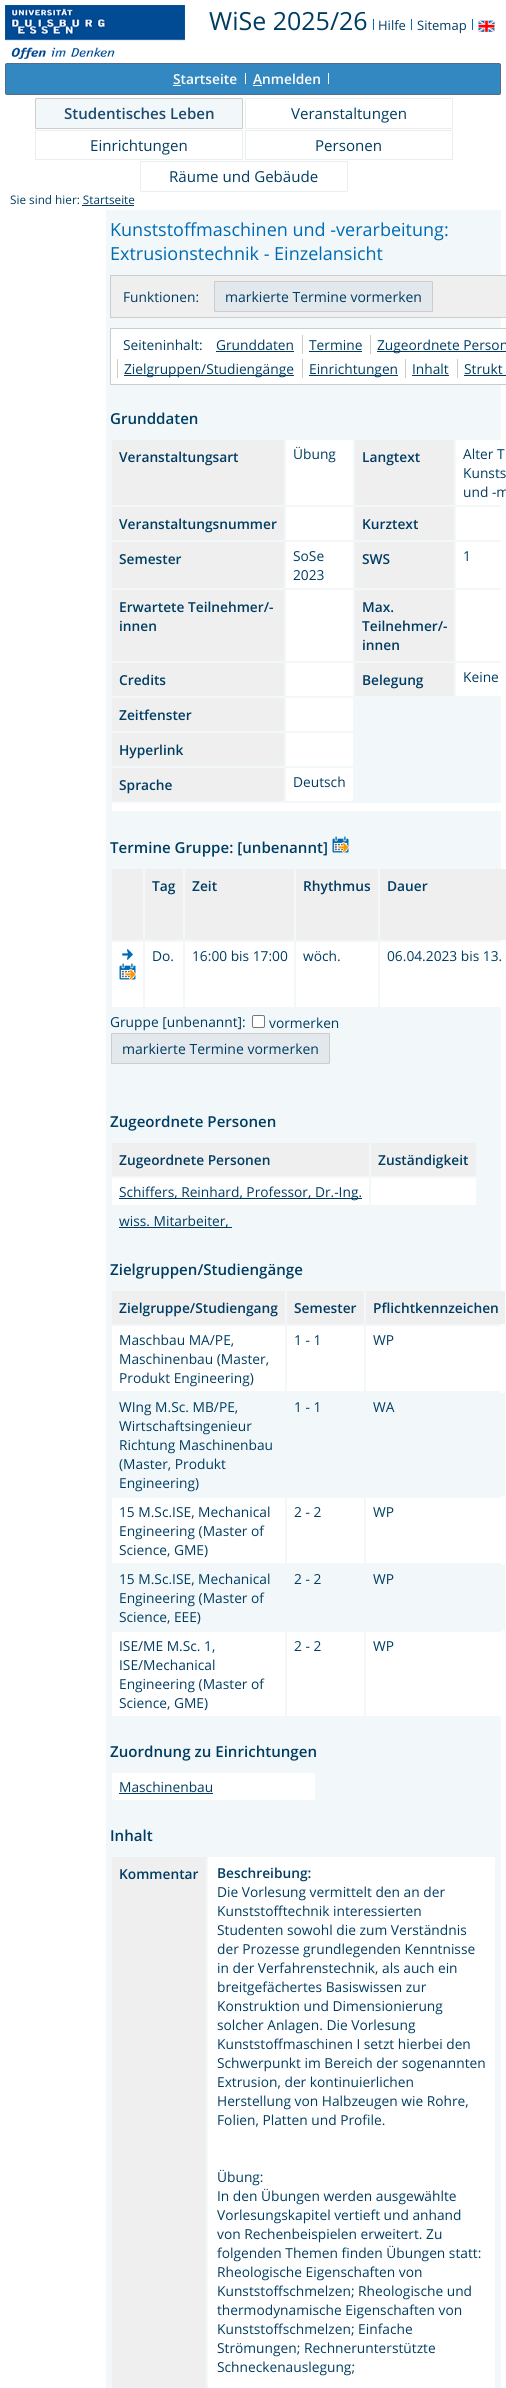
import math
import cairo

surface = cairo.ImageSurface(cairo.FORMAT_RGB24, 506, 2388)
ctx = cairo.Context(surface)
options = cairo.FontOptions()
options.set_hint_metrics(cairo.HINT_METRICS_OFF)
options.set_hint_style(cairo.HINT_STYLE_NONE)
ctx.set_font_options(options)
ctx.set_miter_limit(4)


def round_rect(x, y, w, h, r):
    ctx.new_sub_path()
    for i, (u, v) in enumerate([(x + w - r, y + h - r), (x + r, y + h - r), (x + r, y + r), (x + w - r, y + r)]):
        ctx.arc(u, v, r, i * math.pi / 2, (i + 1) * math.pi / 2)
    ctx.close_path()


def picture(path, x, y, w, h):
    ctx.save()
    ctx.set_source_surface(cairo.ImageSurface.create_from_png(path), x, y)
    ctx.rectangle(x, y, w, h)
    ctx.fill()
    ctx.restore()


ctx.set_source_rgb(1, 1, 1)
ctx.paint()
picture("img1.png", 5, 5, 180, 54)
ctx.select_font_face("Open Sans")
ctx.set_font_size(25)
ctx.set_source_rgb(0, 0.235, 0.384)
ctx.move_to(209, 30)
ctx.show_text("WiSe 2025/26")
ctx.set_font_size(13)
ctx.move_to(378, 30)
ctx.show_text("Hilfe")
ctx.set_source_rgb(0, 0.416, 0.702)
ctx.rectangle(373, 19, 1, 11)
ctx.fill()
ctx.rectangle(411, 19, 1, 11)
ctx.fill()
ctx.set_source_rgb(0, 0.235, 0.384)
ctx.move_to(417, 30)
ctx.show_text("Sitemap")
ctx.set_source_rgb(0, 0.416, 0.702)
ctx.rectangle(472, 19, 1, 11)
ctx.fill()
picture("img2.png", 478, 20, 17, 12)
ctx.set_source_rgb(0.2, 0.533, 0.757)
round_rect(5.5, 63.5, 495, 31, 1.5)
ctx.fill_preserve()
ctx.set_source_rgb(0.322, 0.424, 0.557)
ctx.set_line_width(1)
ctx.stroke()
ctx.select_font_face("Open Sans SemiBold")
ctx.set_font_size(13.75)
ctx.set_source_rgb(1, 1, 1)
ctx.move_to(173, 84)
ctx.show_text("Startseite")
ctx.rectangle(173, 85, 8, 1)
ctx.fill()
ctx.rectangle(245, 73, 1, 11)
ctx.fill()
ctx.move_to(253, 84)
ctx.show_text("Anmelden")
ctx.rectangle(253, 85, 9, 1)
ctx.fill()
ctx.rectangle(328, 73, 1, 11)
ctx.fill()
ctx.set_source_rgb(0.949, 0.969, 0.973)
round_rect(35.5, 98.5, 207, 30, 0.5)
ctx.fill_preserve()
ctx.set_source_rgb(0.8, 0.8, 0.8)
ctx.stroke()
ctx.set_font_size(15.1)
ctx.set_source_rgb(0.11, 0.29, 0.439)
ctx.move_to(64, 119)
ctx.show_text("Studentisches Leben")
round_rect(245.5, 98.5, 207, 30, 0.5)
ctx.set_source_rgb(0.914, 0.933, 0.941)
ctx.stroke()
ctx.select_font_face("Open Sans")
ctx.set_source_rgb(0, 0.235, 0.384)
ctx.move_to(291, 119)
ctx.show_text("Veranstaltungen")
round_rect(35.5, 130.5, 207, 29, 0.5)
ctx.set_source_rgb(0.914, 0.933, 0.941)
ctx.stroke()
ctx.set_source_rgb(0, 0.235, 0.384)
ctx.move_to(90, 151)
ctx.show_text("Einrichtungen")
round_rect(245.5, 130.5, 207, 29, 0.5)
ctx.set_source_rgb(0.914, 0.933, 0.941)
ctx.stroke()
ctx.set_source_rgb(0, 0.235, 0.384)
ctx.move_to(315, 151)
ctx.show_text("Personen")
round_rect(140.5, 161.5, 207, 30, 0.5)
ctx.set_source_rgb(0.914, 0.933, 0.941)
ctx.stroke()
ctx.set_source_rgb(0, 0.235, 0.384)
ctx.move_to(169, 182)
ctx.show_text("Räume und Gebäude")
ctx.set_font_size(11.75)
ctx.move_to(10, 204)
ctx.show_text("Sie sind hier: Startseite")
ctx.rectangle(82, 205, 52, 1)
ctx.fill()
ctx.set_source_rgb(0.949, 0.969, 0.973)
ctx.rectangle(106, 210, 395, 2178)
ctx.fill()
ctx.set_font_size(18)
ctx.set_source_rgb(0, 0.416, 0.698)
ctx.move_to(110, 236)
ctx.show_text("Kunststoffmaschinen und -verarbeitung:")
ctx.move_to(110, 260)
ctx.show_text("Extrusionstechnik - Einzelansicht")
ctx.set_source_rgb(0.937, 0.937, 0.937)
ctx.rectangle(110.5, 275.5, 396, 42)
ctx.fill_preserve()
ctx.set_source_rgb(0.8, 0.8, 0.8)
ctx.stroke()
ctx.set_font_size(13.75)
ctx.set_source_rgb(0, 0.235, 0.384)
ctx.move_to(123, 302)
ctx.show_text("Funktionen:")
ctx.set_source_rgb(0.886, 0.91, 0.925)
round_rect(214.5, 281.5, 218, 30, 0.5)
ctx.fill_preserve()
ctx.set_source_rgb(0.8, 0.8, 0.8)
ctx.stroke()
ctx.set_font_size(14)
ctx.set_source_rgb(0, 0.235, 0.384)
ctx.move_to(225, 302)
ctx.show_text("markierte Termine vormerken")
ctx.set_source_rgb(1, 1, 1)
ctx.rectangle(111, 329, 390, 55)
ctx.fill()
ctx.rectangle(110.5, 328.5, 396, 56)
ctx.set_source_rgb(0.8, 0.8, 0.8)
ctx.stroke()
ctx.set_font_size(13.75)
ctx.set_source_rgb(0, 0.235, 0.384)
ctx.move_to(123, 350)
ctx.show_text("Seiteninhalt:")
ctx.move_to(216, 350)
ctx.show_text("Grunddaten")
ctx.rectangle(216, 351, 78, 1)
ctx.fill()
ctx.move_to(309, 350)
ctx.show_text("Termine")
ctx.set_source_rgb(0.8, 0.8, 0.8)
ctx.rectangle(302, 335, 1, 19)
ctx.fill()
ctx.set_source_rgb(0, 0.235, 0.384)
ctx.rectangle(309, 351, 53, 1)
ctx.fill()
ctx.rectangle(377, 351, 129, 1)
ctx.fill()
ctx.move_to(377, 350)
ctx.show_text("Zugeordnete Person")
ctx.set_source_rgb(0.8, 0.8, 0.8)
ctx.rectangle(370, 335, 1, 19)
ctx.fill()
ctx.set_source_rgb(0, 0.235, 0.384)
ctx.rectangle(124, 375, 170, 1)
ctx.fill()
ctx.move_to(124, 374)
ctx.show_text("Zielgruppen/Studiengänge")
ctx.set_source_rgb(0.8, 0.8, 0.8)
ctx.rectangle(117, 359, 1, 19)
ctx.fill()
ctx.set_source_rgb(0, 0.235, 0.384)
ctx.rectangle(309, 375, 89, 1)
ctx.fill()
ctx.move_to(309, 374)
ctx.show_text("Einrichtungen")
ctx.set_source_rgb(0.8, 0.8, 0.8)
ctx.rectangle(302, 359, 1, 19)
ctx.fill()
ctx.set_source_rgb(0, 0.235, 0.384)
ctx.move_to(412, 374)
ctx.show_text("Inhalt")
ctx.set_source_rgb(0.8, 0.8, 0.8)
ctx.rectangle(405, 359, 1, 19)
ctx.fill()
ctx.set_source_rgb(0, 0.235, 0.384)
ctx.rectangle(412, 375, 37, 1)
ctx.fill()
ctx.move_to(464, 374)
ctx.show_text("Strukt")
ctx.set_source_rgb(0.8, 0.8, 0.8)
ctx.rectangle(457, 359, 1, 19)
ctx.fill()
ctx.set_source_rgb(0, 0.235, 0.384)
ctx.rectangle(464, 375, 42, 1)
ctx.fill()
ctx.select_font_face("Open Sans SemiBold")
ctx.set_font_size(15.1)
ctx.move_to(110, 424)
ctx.show_text("Grunddaten")
ctx.set_source_rgb(0.937, 0.937, 0.937)
ctx.rectangle(112, 440, 172, 65)
ctx.fill()
ctx.set_font_size(13.75)
ctx.set_source_rgb(0, 0.235, 0.384)
ctx.move_to(119, 462)
ctx.show_text("Veranstaltungsart")
ctx.set_source_rgb(1, 1, 1)
ctx.rectangle(286, 440, 67, 65)
ctx.fill()
ctx.select_font_face("Open Sans")
ctx.set_source_rgb(0, 0.235, 0.384)
ctx.move_to(293, 459)
ctx.show_text("Übung")
ctx.set_source_rgb(0.937, 0.937, 0.937)
ctx.rectangle(355, 440, 99, 65)
ctx.fill()
ctx.select_font_face("Open Sans SemiBold")
ctx.set_source_rgb(0, 0.235, 0.384)
ctx.move_to(362, 462)
ctx.show_text("Langtext")
ctx.set_source_rgb(1, 1, 1)
ctx.rectangle(456, 440, 45, 65)
ctx.fill()
ctx.select_font_face("Open Sans")
ctx.set_source_rgb(0, 0.235, 0.384)
ctx.move_to(463, 459)
ctx.show_text("Alter T")
ctx.move_to(463, 478)
ctx.show_text("Kunsts")
ctx.move_to(463, 497)
ctx.show_text("und -m")
ctx.set_source_rgb(0.937, 0.937, 0.937)
ctx.rectangle(112, 507, 172, 33)
ctx.fill()
ctx.select_font_face("Open Sans SemiBold")
ctx.set_source_rgb(0, 0.235, 0.384)
ctx.move_to(119, 529)
ctx.show_text("Veranstaltungsnummer")
ctx.set_source_rgb(1, 1, 1)
ctx.rectangle(286, 507, 67, 33)
ctx.fill()
ctx.set_source_rgb(0.937, 0.937, 0.937)
ctx.rectangle(355, 507, 99, 33)
ctx.fill()
ctx.set_source_rgb(0, 0.235, 0.384)
ctx.move_to(362, 529)
ctx.show_text("Kurztext")
ctx.set_source_rgb(1, 1, 1)
ctx.rectangle(456, 507, 45, 33)
ctx.fill()
ctx.set_source_rgb(0.937, 0.937, 0.937)
ctx.rectangle(112, 542, 172, 46)
ctx.fill()
ctx.set_source_rgb(0, 0.235, 0.384)
ctx.move_to(119, 564)
ctx.show_text("Semester")
ctx.set_source_rgb(1, 1, 1)
ctx.rectangle(286, 542, 67, 46)
ctx.fill()
ctx.select_font_face("Open Sans")
ctx.set_source_rgb(0, 0.235, 0.384)
ctx.move_to(293, 561)
ctx.show_text("SoSe")
ctx.move_to(293, 580)
ctx.show_text("2023")
ctx.set_source_rgb(0.937, 0.937, 0.937)
ctx.rectangle(355, 542, 99, 46)
ctx.fill()
ctx.select_font_face("Open Sans SemiBold")
ctx.set_source_rgb(0, 0.235, 0.384)
ctx.move_to(362, 564)
ctx.show_text("SWS")
ctx.set_source_rgb(1, 1, 1)
ctx.rectangle(456, 542, 45, 46)
ctx.fill()
ctx.select_font_face("Open Sans")
ctx.set_source_rgb(0, 0.235, 0.384)
ctx.move_to(463, 561)
ctx.show_text("1")
ctx.set_source_rgb(0.937, 0.937, 0.937)
ctx.rectangle(112, 590, 172, 71)
ctx.fill()
ctx.select_font_face("Open Sans SemiBold")
ctx.set_source_rgb(0, 0.235, 0.384)
ctx.move_to(119, 612)
ctx.show_text("Erwartete Teilnehmer/-")
ctx.move_to(119, 631)
ctx.show_text("innen")
ctx.set_source_rgb(1, 1, 1)
ctx.rectangle(286, 590, 67, 71)
ctx.fill()
ctx.set_source_rgb(0.937, 0.937, 0.937)
ctx.rectangle(355, 590, 99, 71)
ctx.fill()
ctx.set_source_rgb(0, 0.235, 0.384)
ctx.move_to(362, 612)
ctx.show_text("Max.")
ctx.move_to(362, 631)
ctx.show_text("Teilnehmer/-")
ctx.move_to(362, 650)
ctx.show_text("innen")
ctx.set_source_rgb(1, 1, 1)
ctx.rectangle(456, 590, 45, 71)
ctx.fill()
ctx.set_source_rgb(0.937, 0.937, 0.937)
ctx.rectangle(112, 663, 172, 33)
ctx.fill()
ctx.set_source_rgb(0, 0.235, 0.384)
ctx.move_to(119, 685)
ctx.show_text("Credits")
ctx.set_source_rgb(1, 1, 1)
ctx.rectangle(286, 663, 67, 33)
ctx.fill()
ctx.set_source_rgb(0.937, 0.937, 0.937)
ctx.rectangle(355, 663, 99, 33)
ctx.fill()
ctx.set_source_rgb(0, 0.235, 0.384)
ctx.move_to(362, 685)
ctx.show_text("Belegung")
ctx.set_source_rgb(1, 1, 1)
ctx.rectangle(456, 663, 45, 33)
ctx.fill()
ctx.select_font_face("Open Sans")
ctx.set_source_rgb(0, 0.235, 0.384)
ctx.move_to(463, 682)
ctx.show_text("Keine")
ctx.set_source_rgb(0.937, 0.937, 0.937)
ctx.rectangle(112, 698, 172, 33)
ctx.fill()
ctx.select_font_face("Open Sans SemiBold")
ctx.set_source_rgb(0, 0.235, 0.384)
ctx.move_to(119, 720)
ctx.show_text("Zeitfenster")
ctx.set_source_rgb(1, 1, 1)
ctx.rectangle(286, 698, 67, 33)
ctx.fill()
ctx.set_source_rgb(0.937, 0.937, 0.937)
ctx.rectangle(112, 733, 172, 33)
ctx.fill()
ctx.set_source_rgb(0, 0.235, 0.384)
ctx.move_to(119, 755)
ctx.show_text("Hyperlink")
ctx.set_source_rgb(1, 1, 1)
ctx.rectangle(286, 733, 67, 33)
ctx.fill()
ctx.set_source_rgb(0.937, 0.937, 0.937)
ctx.rectangle(112, 768, 172, 33)
ctx.fill()
ctx.set_source_rgb(0, 0.235, 0.384)
ctx.move_to(119, 790)
ctx.show_text("Sprache")
ctx.set_source_rgb(1, 1, 1)
ctx.rectangle(286, 768, 67, 33)
ctx.fill()
ctx.select_font_face("Open Sans")
ctx.set_source_rgb(0, 0.235, 0.384)
ctx.move_to(293, 787)
ctx.show_text("Deutsch")
ctx.set_source_rgb(1, 1, 1)
ctx.rectangle(112, 803, 394, 8)
ctx.fill()
ctx.select_font_face("Open Sans SemiBold")
ctx.set_font_size(15.1)
ctx.set_source_rgb(0, 0.235, 0.384)
ctx.move_to(110, 853)
ctx.show_text("Termine Gruppe: [unbenannt]")
picture("img3.png", 332, 836, 17, 17)
ctx.set_source_rgb(0.937, 0.937, 0.937)
ctx.rectangle(112, 869, 31, 71)
ctx.fill()
ctx.rectangle(145, 869, 38, 71)
ctx.fill()
ctx.set_font_size(13.75)
ctx.set_source_rgb(0, 0.235, 0.384)
ctx.move_to(152, 891)
ctx.show_text("Tag")
ctx.set_source_rgb(0.937, 0.937, 0.937)
ctx.rectangle(185, 869, 109, 71)
ctx.fill()
ctx.set_source_rgb(0, 0.235, 0.384)
ctx.move_to(192, 891)
ctx.show_text("Zeit")
ctx.set_source_rgb(0.937, 0.937, 0.937)
ctx.rectangle(296, 869, 82, 71)
ctx.fill()
ctx.set_source_rgb(0, 0.235, 0.384)
ctx.move_to(303, 891)
ctx.show_text("Rhythmus")
ctx.set_source_rgb(0.937, 0.937, 0.937)
ctx.rectangle(380, 869, 126, 71)
ctx.fill()
ctx.set_source_rgb(0, 0.235, 0.384)
ctx.move_to(387, 891)
ctx.show_text("Dauer")
ctx.set_source_rgb(1, 1, 1)
ctx.rectangle(112, 942, 31, 65)
ctx.fill()
picture("img4.png", 122, 949, 11, 11)
picture("img5.png", 119, 963, 17, 17)
ctx.rectangle(145, 942, 38, 65)
ctx.fill()
ctx.select_font_face("Open Sans")
ctx.set_source_rgb(0, 0.235, 0.384)
ctx.move_to(152, 961)
ctx.show_text("Do.")
ctx.set_source_rgb(1, 1, 1)
ctx.rectangle(185, 942, 109, 65)
ctx.fill()
ctx.set_source_rgb(0, 0.235, 0.384)
ctx.move_to(192, 961)
ctx.show_text("16:00 bis 17:00")
ctx.set_source_rgb(1, 1, 1)
ctx.rectangle(296, 942, 82, 65)
ctx.fill()
ctx.set_source_rgb(0, 0.235, 0.384)
ctx.move_to(303, 961)
ctx.show_text("wöch.")
ctx.set_source_rgb(1, 1, 1)
ctx.rectangle(380, 942, 121, 65)
ctx.fill()
ctx.set_source_rgb(0, 0.235, 0.384)
ctx.move_to(387, 961)
ctx.show_text("06.04.2023 bis 13.")
ctx.move_to(110, 1027)
ctx.show_text("Gruppe [unbenannt]:")
ctx.set_source_rgb(1, 1, 1)
round_rect(252.5, 1015.5, 12, 12, 1.5)
ctx.fill_preserve()
ctx.set_source_rgb(0.463, 0.463, 0.463)
ctx.stroke()
ctx.set_source_rgb(0, 0.235, 0.384)
ctx.move_to(269, 1028)
ctx.show_text("vormerken")
ctx.set_source_rgb(0.886, 0.91, 0.925)
round_rect(111.5, 1033.5, 218, 30, 0.5)
ctx.fill_preserve()
ctx.set_source_rgb(0.8, 0.8, 0.8)
ctx.stroke()
ctx.set_font_size(14)
ctx.set_source_rgb(0, 0.235, 0.384)
ctx.move_to(122, 1054)
ctx.show_text("markierte Termine vormerken")
ctx.select_font_face("Open Sans SemiBold")
ctx.set_font_size(15.1)
ctx.move_to(110, 1127)
ctx.show_text("Zugeordnete Personen")
ctx.set_source_rgb(0.937, 0.937, 0.937)
ctx.rectangle(112, 1143, 257, 33)
ctx.fill()
ctx.set_font_size(13.75)
ctx.set_source_rgb(0, 0.235, 0.384)
ctx.move_to(119, 1165)
ctx.show_text("Zugeordnete Personen")
ctx.set_source_rgb(0.937, 0.937, 0.937)
ctx.rectangle(371, 1143, 105, 33)
ctx.fill()
ctx.set_source_rgb(0, 0.235, 0.384)
ctx.move_to(378, 1165)
ctx.show_text("Zuständigkeit")
ctx.set_source_rgb(1, 1, 1)
ctx.rectangle(112, 1178, 257, 27)
ctx.fill()
ctx.set_source_rgb(0, 0.235, 0.384)
ctx.rectangle(119, 1198, 243, 1)
ctx.fill()
ctx.select_font_face("Open Sans")
ctx.move_to(119, 1197)
ctx.show_text("Schiffers, Reinhard, Professor, Dr.-Ing.")
ctx.set_source_rgb(1, 1, 1)
ctx.rectangle(371, 1178, 105, 27)
ctx.fill()
ctx.set_source_rgb(0, 0.235, 0.384)
ctx.rectangle(119, 1227, 113, 1)
ctx.fill()
ctx.move_to(119, 1226)
ctx.show_text("wiss. Mitarbeiter,")
ctx.select_font_face("Open Sans SemiBold")
ctx.set_font_size(15.1)
ctx.move_to(110, 1275)
ctx.show_text("Zielgruppen/Studiengänge")
ctx.set_source_rgb(0.937, 0.937, 0.937)
ctx.rectangle(112, 1291, 173, 33)
ctx.fill()
ctx.set_font_size(13.75)
ctx.set_source_rgb(0, 0.235, 0.384)
ctx.move_to(119, 1313)
ctx.show_text("Zielgruppe/Studiengang")
ctx.set_source_rgb(0.937, 0.937, 0.937)
ctx.rectangle(287, 1291, 77, 33)
ctx.fill()
ctx.set_source_rgb(0, 0.235, 0.384)
ctx.move_to(294, 1313)
ctx.show_text("Semester")
ctx.set_source_rgb(0.937, 0.937, 0.937)
ctx.rectangle(366, 1291, 139, 33)
ctx.fill()
ctx.set_source_rgb(0, 0.235, 0.384)
ctx.move_to(373, 1313)
ctx.show_text("Pflichtkennzeichen")
ctx.set_source_rgb(1, 1, 1)
ctx.rectangle(112, 1326, 173, 65)
ctx.fill()
ctx.select_font_face("Open Sans")
ctx.set_source_rgb(0, 0.235, 0.384)
ctx.move_to(119, 1345)
ctx.show_text("Maschbau MA/PE,")
ctx.move_to(119, 1364)
ctx.show_text("Maschinenbau (Master,")
ctx.move_to(119, 1383)
ctx.show_text("Produkt Engineering)")
ctx.set_source_rgb(1, 1, 1)
ctx.rectangle(287, 1326, 77, 65)
ctx.fill()
ctx.set_source_rgb(0, 0.235, 0.384)
ctx.move_to(294, 1345)
ctx.show_text("1 - 1")
ctx.set_source_rgb(1, 1, 1)
ctx.rectangle(366, 1326, 135, 65)
ctx.fill()
ctx.set_source_rgb(0, 0.235, 0.384)
ctx.move_to(373, 1345)
ctx.show_text("WP")
ctx.move_to(119, 1412)
ctx.show_text("WIng M.Sc. MB/PE,")
ctx.move_to(119, 1431)
ctx.show_text("Wirtschaftsingenieur")
ctx.move_to(119, 1450)
ctx.show_text("Richtung Maschinenbau")
ctx.move_to(119, 1469)
ctx.show_text("(Master, Produkt")
ctx.move_to(119, 1488)
ctx.show_text("Engineering)")
ctx.move_to(294, 1412)
ctx.show_text("1 - 1")
ctx.set_source_rgb(0.957, 0.965, 0.969)
ctx.rectangle(501, 1393, 4, 103)
ctx.fill()
ctx.set_source_rgb(0, 0.235, 0.384)
ctx.move_to(373, 1412)
ctx.show_text("WA")
ctx.set_source_rgb(1, 1, 1)
ctx.rectangle(112, 1498, 173, 65)
ctx.fill()
ctx.set_source_rgb(0, 0.235, 0.384)
ctx.move_to(119, 1517)
ctx.show_text("15 M.Sc.ISE, Mechanical")
ctx.move_to(119, 1536)
ctx.show_text("Engineering (Master of")
ctx.move_to(119, 1555)
ctx.show_text("Science, GME)")
ctx.set_source_rgb(1, 1, 1)
ctx.rectangle(287, 1498, 77, 65)
ctx.fill()
ctx.set_source_rgb(0, 0.235, 0.384)
ctx.move_to(294, 1517)
ctx.show_text("2 - 2")
ctx.set_source_rgb(1, 1, 1)
ctx.rectangle(366, 1498, 135, 65)
ctx.fill()
ctx.set_source_rgb(0, 0.235, 0.384)
ctx.move_to(373, 1517)
ctx.show_text("WP")
ctx.move_to(119, 1584)
ctx.show_text("15 M.Sc.ISE, Mechanical")
ctx.move_to(119, 1603)
ctx.show_text("Engineering (Master of")
ctx.move_to(119, 1622)
ctx.show_text("Science, EEE)")
ctx.move_to(294, 1584)
ctx.show_text("2 - 2")
ctx.set_source_rgb(0.957, 0.965, 0.969)
ctx.rectangle(501, 1565, 4, 65)
ctx.fill()
ctx.set_source_rgb(0, 0.235, 0.384)
ctx.move_to(373, 1584)
ctx.show_text("WP")
ctx.set_source_rgb(1, 1, 1)
ctx.rectangle(112, 1632, 173, 84)
ctx.fill()
ctx.set_source_rgb(0, 0.235, 0.384)
ctx.move_to(119, 1651)
ctx.show_text("ISE/ME M.Sc. 1,")
ctx.move_to(119, 1670)
ctx.show_text("ISE/Mechanical")
ctx.move_to(119, 1689)
ctx.show_text("Engineering (Master of")
ctx.move_to(119, 1708)
ctx.show_text("Science, GME)")
ctx.set_source_rgb(1, 1, 1)
ctx.rectangle(287, 1632, 77, 84)
ctx.fill()
ctx.set_source_rgb(0, 0.235, 0.384)
ctx.move_to(294, 1651)
ctx.show_text("2 - 2")
ctx.set_source_rgb(1, 1, 1)
ctx.rectangle(366, 1632, 135, 84)
ctx.fill()
ctx.set_source_rgb(0, 0.235, 0.384)
ctx.move_to(373, 1651)
ctx.show_text("WP")
ctx.select_font_face("Open Sans SemiBold")
ctx.set_font_size(15.1)
ctx.move_to(110, 1757)
ctx.show_text("Zuordnung zu Einrichtungen")
ctx.set_source_rgb(1, 1, 1)
ctx.rectangle(112, 1773, 203, 27)
ctx.fill()
ctx.select_font_face("Open Sans")
ctx.set_font_size(13.75)
ctx.set_source_rgb(0, 0.235, 0.384)
ctx.move_to(119, 1792)
ctx.show_text("Maschinenbau")
ctx.rectangle(119, 1793, 94, 1)
ctx.fill()
ctx.select_font_face("Open Sans SemiBold")
ctx.set_font_size(15.1)
ctx.move_to(110, 1841)
ctx.show_text("Inhalt")
ctx.set_source_rgb(0.937, 0.937, 0.937)
ctx.rectangle(112, 1857, 94, 531)
ctx.fill()
ctx.set_font_size(13.75)
ctx.set_source_rgb(0, 0.235, 0.384)
ctx.move_to(119, 1879)
ctx.show_text("Kommentar")
ctx.set_source_rgb(1, 1, 1)
ctx.rectangle(208, 1857, 287, 531)
ctx.fill()
ctx.set_source_rgb(0, 0.235, 0.384)
ctx.move_to(217, 1878)
ctx.show_text("Beschreibung:")
ctx.select_font_face("Open Sans")
ctx.move_to(217, 1897)
ctx.show_text("Die Vorlesung vermittelt den an der")
ctx.move_to(217, 1916)
ctx.show_text("Kunststofftechnik interessierten")
ctx.move_to(217, 1935)
ctx.show_text("Studenten sowohl die zum Verständnis")
ctx.move_to(217, 1954)
ctx.show_text("der Prozesse grundlegenden Kenntnisse")
ctx.move_to(217, 1973)
ctx.show_text("in der Verfahrenstechnik, als auch ein")
ctx.move_to(217, 1992)
ctx.show_text("breitgefächertes Basiswissen zur")
ctx.move_to(217, 2011)
ctx.show_text("Konstruktion und Dimensionierung")
ctx.move_to(217, 2030)
ctx.show_text("solcher Anlagen. Die Vorlesung")
ctx.move_to(217, 2049)
ctx.show_text("Kunststoffmaschinen I setzt hierbei den")
ctx.move_to(217, 2068)
ctx.show_text("Schwerpunkt im Bereich der sogenannten")
ctx.move_to(217, 2087)
ctx.show_text("Extrusion, der kontinuierlichen")
ctx.move_to(217, 2106)
ctx.show_text("Herstellung von Halbzeugen wie Rohre,")
ctx.move_to(217, 2125)
ctx.show_text("Folien, Platten und Profile.")
ctx.move_to(217, 2182)
ctx.show_text("Übung:")
ctx.move_to(217, 2201)
ctx.show_text("In den Übungen werden ausgewählte")
ctx.move_to(217, 2220)
ctx.show_text("Vorlesungskapitel vertieft und anhand")
ctx.move_to(217, 2239)
ctx.show_text("von Rechenbeispielen erweitert. Zu")
ctx.move_to(217, 2258)
ctx.show_text("folgenden Themen finden Übungen statt:")
ctx.move_to(217, 2277)
ctx.show_text("Rheologische Eigenschaften von")
ctx.move_to(217, 2296)
ctx.show_text("Kunststoffschmelzen; Rheologische und")
ctx.move_to(217, 2315)
ctx.show_text("thermodynamische Eigenschaften von")
ctx.move_to(217, 2334)
ctx.show_text("Kunststoffschmelzen; Einfache")
ctx.move_to(217, 2353)
ctx.show_text("Strömungen; Rechnerunterstützte")
ctx.move_to(217, 2372)
ctx.show_text("Schneckenauslegung;")
surface.write_to_png("page.png")
